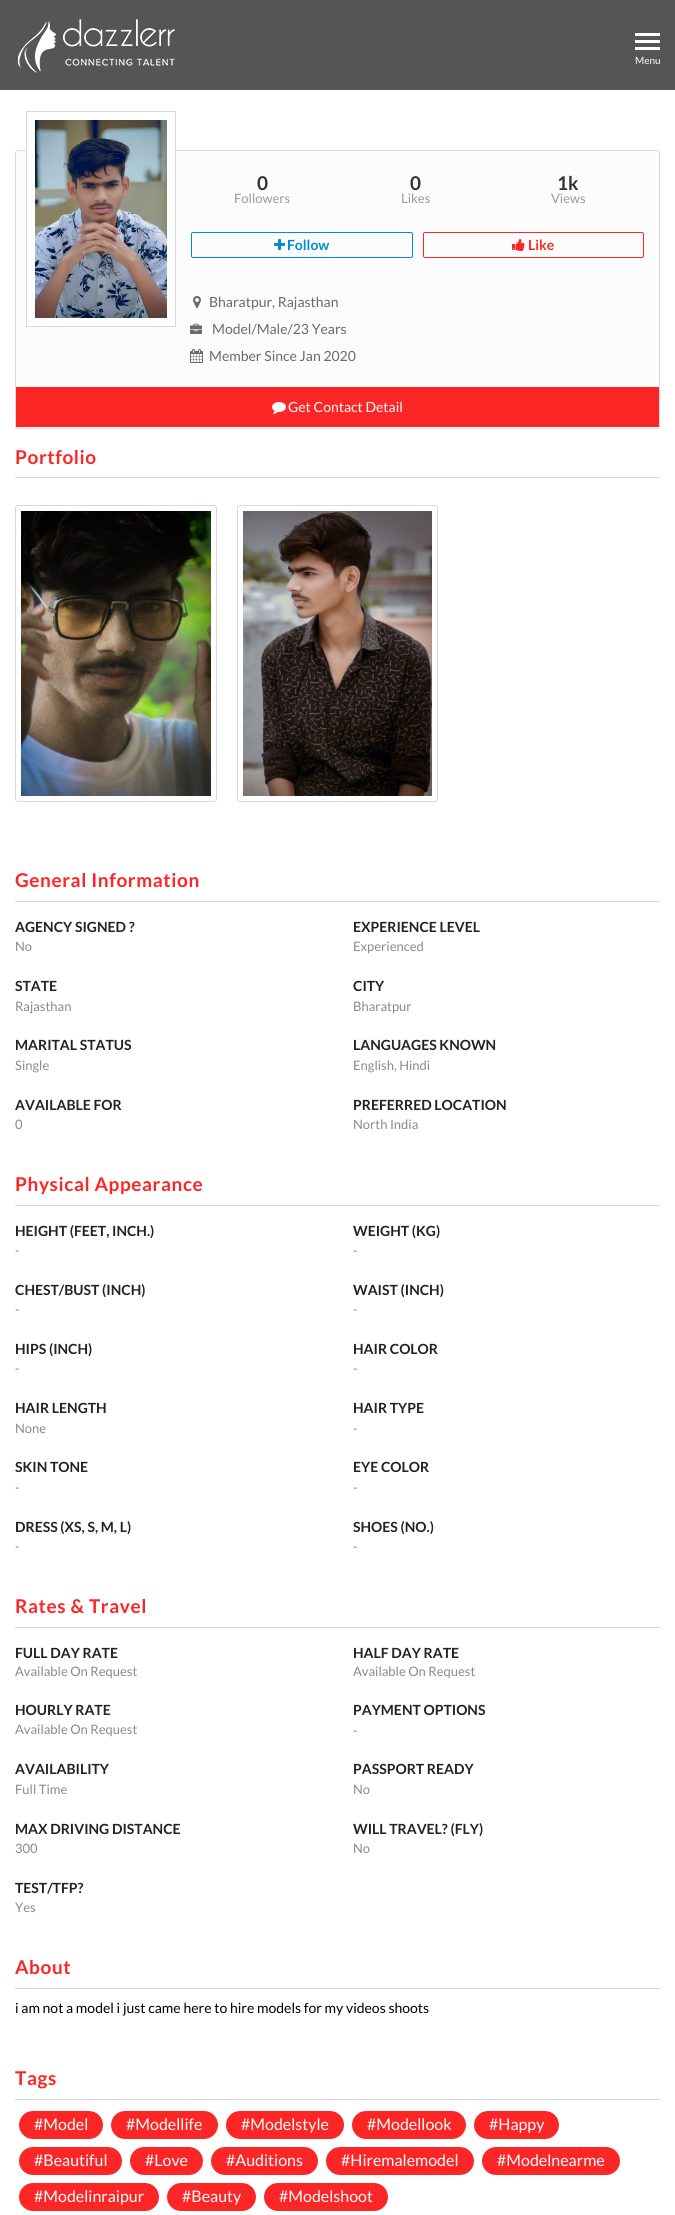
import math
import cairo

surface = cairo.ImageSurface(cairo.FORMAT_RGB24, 675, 2215)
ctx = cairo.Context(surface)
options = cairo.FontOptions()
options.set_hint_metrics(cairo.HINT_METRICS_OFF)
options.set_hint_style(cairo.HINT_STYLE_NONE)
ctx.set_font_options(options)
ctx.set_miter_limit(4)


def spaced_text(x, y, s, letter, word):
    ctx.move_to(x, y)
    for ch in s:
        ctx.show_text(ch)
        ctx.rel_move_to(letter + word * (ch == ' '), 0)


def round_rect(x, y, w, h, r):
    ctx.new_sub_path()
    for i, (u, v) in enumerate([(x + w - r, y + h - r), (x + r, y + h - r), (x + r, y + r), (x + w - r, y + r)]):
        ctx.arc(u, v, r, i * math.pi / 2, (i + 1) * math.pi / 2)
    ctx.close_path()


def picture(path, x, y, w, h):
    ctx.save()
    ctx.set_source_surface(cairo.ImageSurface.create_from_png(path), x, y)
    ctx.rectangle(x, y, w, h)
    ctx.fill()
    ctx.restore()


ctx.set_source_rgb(1, 1, 1)
ctx.paint()
ctx.set_source_rgb(0.333, 0.333, 0.333)
ctx.rectangle(0, 0, 675, 90)
ctx.fill()
picture("img1.png", 18, 19, 157, 54)
ctx.set_source_rgb(1, 1, 1)
ctx.rectangle(635, 33, 25, 3)
ctx.fill()
ctx.rectangle(635, 40, 25, 3)
ctx.fill()
ctx.rectangle(635, 47, 25, 3)
ctx.fill()
ctx.select_font_face("Lato")
ctx.set_font_size(10)
ctx.move_to(635, 64)
ctx.show_text("Menu")
ctx.set_source_rgb(0.988, 0.988, 0.988)
round_rect(15.5, 150.5, 644, 278, 2.5)
ctx.fill_preserve()
ctx.set_source_rgb(0.855, 0.855, 0.855)
ctx.set_line_width(1)
ctx.stroke()
ctx.set_source_rgb(1, 1, 1)
ctx.rectangle(27, 150, 148, 176)
ctx.fill()
ctx.rectangle(26.5, 111.5, 149, 215)
ctx.set_source_rgb(0.855, 0.855, 0.855)
ctx.stroke()
picture("img2.png", 35, 120, 132, 198)
ctx.select_font_face("Lato", cairo.FONT_SLANT_NORMAL, cairo.FONT_WEIGHT_BOLD)
ctx.set_font_size(19)
ctx.set_source_rgb(0.2, 0.2, 0.2)
ctx.move_to(257, 190)
ctx.show_text("0")
ctx.select_font_face("Lato")
ctx.set_font_size(13)
ctx.set_source_rgb(0.6, 0.6, 0.6)
ctx.move_to(234, 203)
ctx.show_text("Followers")
ctx.select_font_face("Lato", cairo.FONT_SLANT_NORMAL, cairo.FONT_WEIGHT_BOLD)
ctx.set_font_size(19)
ctx.set_source_rgb(0.2, 0.2, 0.2)
ctx.move_to(410, 190)
ctx.show_text("0")
ctx.select_font_face("Lato")
ctx.set_font_size(13)
ctx.set_source_rgb(0.6, 0.6, 0.6)
ctx.move_to(401, 203)
ctx.show_text("Likes")
ctx.select_font_face("Lato", cairo.FONT_SLANT_NORMAL, cairo.FONT_WEIGHT_BOLD)
ctx.set_font_size(19)
ctx.set_source_rgb(0.2, 0.2, 0.2)
ctx.move_to(557, 190)
ctx.show_text("1k")
ctx.select_font_face("Lato")
ctx.set_font_size(13)
ctx.set_source_rgb(0.6, 0.6, 0.6)
ctx.move_to(551, 203)
ctx.show_text("Views")
round_rect(191.5, 232.5, 221, 25, 1.5)
ctx.set_source_rgb(0, 0.549, 0.82)
ctx.stroke()
picture("img3.png", 274, 239, 11, 11)
ctx.select_font_face("Lato", cairo.FONT_SLANT_NORMAL, cairo.FONT_WEIGHT_BOLD)
ctx.set_font_size(14)
ctx.move_to(287, 250)
ctx.show_text("Follow")
round_rect(423.5, 232.5, 220, 25, 1.5)
ctx.set_source_rgb(0.988, 0.149, 0.149)
ctx.stroke()
picture("img4.png", 512, 239, 13, 12)
ctx.move_to(528, 250)
ctx.show_text("Like")
picture("img5.png", 193, 296, 8, 12)
ctx.select_font_face("Lato")
ctx.set_source_rgb(0.416, 0.416, 0.416)
ctx.move_to(209, 307)
ctx.show_text("Bharatpur, Rajasthan")
picture("img6.png", 190, 323, 12, 11)
ctx.move_to(212, 334)
ctx.show_text("Model/Male/23 Years")
picture("img7.png", 190, 349, 13, 14)
ctx.move_to(209, 361)
ctx.show_text("Member Since Jan 2020")
ctx.set_source_rgb(0.988, 0.149, 0.149)
ctx.rectangle(16, 387, 643, 40)
ctx.fill()
picture("img8.png", 272, 402, 14, 12)
ctx.set_source_rgb(1, 1, 1)
ctx.move_to(288, 412)
ctx.show_text("Get Contact Detail")
ctx.set_source_rgb(0.855, 0.855, 0.855)
ctx.rectangle(15, 477, 645, 1)
ctx.fill()
ctx.select_font_face("Lato", cairo.FONT_SLANT_NORMAL, cairo.FONT_WEIGHT_BOLD)
ctx.set_font_size(19)
ctx.set_source_rgb(0.988, 0.149, 0.149)
spaced_text(15, 464, "Portfolio", 0.6, 0)
round_rect(15.5, 505.5, 201, 296, 2.5)
ctx.set_source_rgb(0.855, 0.855, 0.855)
ctx.stroke()
picture("img9.png", 21, 511, 190, 285)
round_rect(237.5, 505.5, 200, 296, 2.5)
ctx.stroke()
picture("img10.png", 243, 511, 189, 285)
ctx.rectangle(15, 901, 645, 1)
ctx.fill()
ctx.set_source_rgb(0.988, 0.149, 0.149)
spaced_text(15, 887, "General Information", 0.6, 0)
ctx.set_font_size(14)
ctx.set_source_rgb(0.133, 0.133, 0.133)
ctx.move_to(15, 932)
ctx.show_text("AGENCY SIGNED ?")
ctx.select_font_face("Lato")
ctx.set_font_size(13)
ctx.set_source_rgb(0.541, 0.541, 0.541)
ctx.move_to(15, 951)
ctx.show_text("No")
ctx.select_font_face("Lato", cairo.FONT_SLANT_NORMAL, cairo.FONT_WEIGHT_BOLD)
ctx.set_font_size(14)
ctx.set_source_rgb(0.133, 0.133, 0.133)
ctx.move_to(353, 932)
ctx.show_text("EXPERIENCE LEVEL")
ctx.select_font_face("Lato")
ctx.set_font_size(13)
ctx.set_source_rgb(0.541, 0.541, 0.541)
ctx.move_to(353, 951)
ctx.show_text("Experienced")
ctx.select_font_face("Lato", cairo.FONT_SLANT_NORMAL, cairo.FONT_WEIGHT_BOLD)
ctx.set_font_size(14)
ctx.set_source_rgb(0.133, 0.133, 0.133)
ctx.move_to(15, 991)
ctx.show_text("STATE")
ctx.select_font_face("Lato")
ctx.set_font_size(13)
ctx.set_source_rgb(0.541, 0.541, 0.541)
ctx.move_to(15, 1011)
ctx.show_text("Rajasthan")
ctx.select_font_face("Lato", cairo.FONT_SLANT_NORMAL, cairo.FONT_WEIGHT_BOLD)
ctx.set_font_size(14)
ctx.set_source_rgb(0.133, 0.133, 0.133)
ctx.move_to(353, 991)
ctx.show_text("CITY")
ctx.select_font_face("Lato")
ctx.set_font_size(13)
ctx.set_source_rgb(0.541, 0.541, 0.541)
ctx.move_to(353, 1011)
ctx.show_text("Bharatpur")
ctx.select_font_face("Lato", cairo.FONT_SLANT_NORMAL, cairo.FONT_WEIGHT_BOLD)
ctx.set_font_size(14)
ctx.set_source_rgb(0.133, 0.133, 0.133)
ctx.move_to(15, 1050)
ctx.show_text("MARITAL STATUS")
ctx.select_font_face("Lato")
ctx.set_font_size(13)
ctx.set_source_rgb(0.541, 0.541, 0.541)
ctx.move_to(15, 1070)
ctx.show_text("Single")
ctx.select_font_face("Lato", cairo.FONT_SLANT_NORMAL, cairo.FONT_WEIGHT_BOLD)
ctx.set_font_size(14)
ctx.set_source_rgb(0.133, 0.133, 0.133)
ctx.move_to(353, 1050)
ctx.show_text("LANGUAGES KNOWN")
ctx.select_font_face("Lato")
ctx.set_font_size(13)
ctx.set_source_rgb(0.541, 0.541, 0.541)
ctx.move_to(353, 1070)
ctx.show_text("English, Hindi")
ctx.select_font_face("Lato", cairo.FONT_SLANT_NORMAL, cairo.FONT_WEIGHT_BOLD)
ctx.set_font_size(14)
ctx.set_source_rgb(0.133, 0.133, 0.133)
ctx.move_to(15, 1110)
ctx.show_text("AVAILABLE FOR")
ctx.select_font_face("Lato")
ctx.set_font_size(13)
ctx.set_source_rgb(0.541, 0.541, 0.541)
ctx.move_to(15, 1129)
ctx.show_text("0")
ctx.select_font_face("Lato", cairo.FONT_SLANT_NORMAL, cairo.FONT_WEIGHT_BOLD)
ctx.set_font_size(14)
ctx.set_source_rgb(0.133, 0.133, 0.133)
ctx.move_to(353, 1110)
ctx.show_text("PREFERRED LOCATION")
ctx.select_font_face("Lato")
ctx.set_font_size(13)
ctx.set_source_rgb(0.541, 0.541, 0.541)
ctx.move_to(353, 1129)
ctx.show_text("North India")
ctx.set_source_rgb(0.855, 0.855, 0.855)
ctx.rectangle(15, 1205, 645, 1)
ctx.fill()
ctx.select_font_face("Lato", cairo.FONT_SLANT_NORMAL, cairo.FONT_WEIGHT_BOLD)
ctx.set_font_size(19)
ctx.set_source_rgb(0.988, 0.149, 0.149)
spaced_text(15, 1191, "Physical Appearance", 0.6, 0)
ctx.set_font_size(14)
ctx.set_source_rgb(0.133, 0.133, 0.133)
ctx.move_to(15, 1236)
ctx.show_text("HEIGHT (FEET, INCH.)")
ctx.select_font_face("Lato")
ctx.set_font_size(13)
ctx.set_source_rgb(0.541, 0.541, 0.541)
ctx.move_to(15, 1255)
ctx.show_text("-")
ctx.select_font_face("Lato", cairo.FONT_SLANT_NORMAL, cairo.FONT_WEIGHT_BOLD)
ctx.set_font_size(14)
ctx.set_source_rgb(0.133, 0.133, 0.133)
ctx.move_to(353, 1236)
ctx.show_text("WEIGHT (KG)")
ctx.select_font_face("Lato")
ctx.set_font_size(13)
ctx.set_source_rgb(0.541, 0.541, 0.541)
ctx.move_to(353, 1255)
ctx.show_text("-")
ctx.select_font_face("Lato", cairo.FONT_SLANT_NORMAL, cairo.FONT_WEIGHT_BOLD)
ctx.set_font_size(14)
ctx.set_source_rgb(0.133, 0.133, 0.133)
ctx.move_to(15, 1295)
ctx.show_text("CHEST/BUST (INCH)")
ctx.select_font_face("Lato")
ctx.set_font_size(13)
ctx.set_source_rgb(0.541, 0.541, 0.541)
ctx.move_to(15, 1314)
ctx.show_text("-")
ctx.select_font_face("Lato", cairo.FONT_SLANT_NORMAL, cairo.FONT_WEIGHT_BOLD)
ctx.set_font_size(14)
ctx.set_source_rgb(0.133, 0.133, 0.133)
ctx.move_to(353, 1295)
ctx.show_text("WAIST (INCH)")
ctx.select_font_face("Lato")
ctx.set_font_size(13)
ctx.set_source_rgb(0.541, 0.541, 0.541)
ctx.move_to(353, 1314)
ctx.show_text("-")
ctx.select_font_face("Lato", cairo.FONT_SLANT_NORMAL, cairo.FONT_WEIGHT_BOLD)
ctx.set_font_size(14)
ctx.set_source_rgb(0.133, 0.133, 0.133)
ctx.move_to(15, 1354)
ctx.show_text("HIPS (INCH)")
ctx.select_font_face("Lato")
ctx.set_font_size(13)
ctx.set_source_rgb(0.541, 0.541, 0.541)
ctx.move_to(15, 1373)
ctx.show_text("-")
ctx.select_font_face("Lato", cairo.FONT_SLANT_NORMAL, cairo.FONT_WEIGHT_BOLD)
ctx.set_font_size(14)
ctx.set_source_rgb(0.133, 0.133, 0.133)
ctx.move_to(353, 1354)
ctx.show_text("HAIR COLOR")
ctx.select_font_face("Lato")
ctx.set_font_size(13)
ctx.set_source_rgb(0.541, 0.541, 0.541)
ctx.move_to(353, 1373)
ctx.show_text("-")
ctx.select_font_face("Lato", cairo.FONT_SLANT_NORMAL, cairo.FONT_WEIGHT_BOLD)
ctx.set_font_size(14)
ctx.set_source_rgb(0.133, 0.133, 0.133)
ctx.move_to(15, 1413)
ctx.show_text("HAIR LENGTH")
ctx.select_font_face("Lato")
ctx.set_font_size(13)
ctx.set_source_rgb(0.541, 0.541, 0.541)
ctx.move_to(15, 1433)
ctx.show_text("None")
ctx.select_font_face("Lato", cairo.FONT_SLANT_NORMAL, cairo.FONT_WEIGHT_BOLD)
ctx.set_font_size(14)
ctx.set_source_rgb(0.133, 0.133, 0.133)
ctx.move_to(353, 1413)
ctx.show_text("HAIR TYPE")
ctx.select_font_face("Lato")
ctx.set_font_size(13)
ctx.set_source_rgb(0.541, 0.541, 0.541)
ctx.move_to(353, 1433)
ctx.show_text("-")
ctx.select_font_face("Lato", cairo.FONT_SLANT_NORMAL, cairo.FONT_WEIGHT_BOLD)
ctx.set_font_size(14)
ctx.set_source_rgb(0.133, 0.133, 0.133)
ctx.move_to(15, 1472)
ctx.show_text("SKIN TONE")
ctx.select_font_face("Lato")
ctx.set_font_size(13)
ctx.set_source_rgb(0.541, 0.541, 0.541)
ctx.move_to(15, 1492)
ctx.show_text("-")
ctx.select_font_face("Lato", cairo.FONT_SLANT_NORMAL, cairo.FONT_WEIGHT_BOLD)
ctx.set_font_size(14)
ctx.set_source_rgb(0.133, 0.133, 0.133)
ctx.move_to(353, 1472)
ctx.show_text("EYE COLOR")
ctx.select_font_face("Lato")
ctx.set_font_size(13)
ctx.set_source_rgb(0.541, 0.541, 0.541)
ctx.move_to(353, 1492)
ctx.show_text("-")
ctx.select_font_face("Lato", cairo.FONT_SLANT_NORMAL, cairo.FONT_WEIGHT_BOLD)
ctx.set_font_size(14)
ctx.set_source_rgb(0.133, 0.133, 0.133)
ctx.move_to(15, 1532)
ctx.show_text("DRESS (XS, S, M, L)")
ctx.select_font_face("Lato")
ctx.set_font_size(13)
ctx.set_source_rgb(0.541, 0.541, 0.541)
ctx.move_to(15, 1551)
ctx.show_text("-")
ctx.select_font_face("Lato", cairo.FONT_SLANT_NORMAL, cairo.FONT_WEIGHT_BOLD)
ctx.set_font_size(14)
ctx.set_source_rgb(0.133, 0.133, 0.133)
ctx.move_to(353, 1532)
ctx.show_text("SHOES (NO.)")
ctx.select_font_face("Lato")
ctx.set_font_size(13)
ctx.set_source_rgb(0.541, 0.541, 0.541)
ctx.move_to(353, 1551)
ctx.show_text("-")
ctx.set_source_rgb(0.855, 0.855, 0.855)
ctx.rectangle(15, 1627, 645, 1)
ctx.fill()
ctx.select_font_face("Lato", cairo.FONT_SLANT_NORMAL, cairo.FONT_WEIGHT_BOLD)
ctx.set_font_size(19)
ctx.set_source_rgb(0.988, 0.149, 0.149)
spaced_text(15, 1613, "Rates & Travel", 0.6, 0)
ctx.set_font_size(14)
ctx.set_source_rgb(0.133, 0.133, 0.133)
ctx.move_to(15, 1658)
ctx.show_text("FULL DAY RATE")
ctx.select_font_face("Lato")
ctx.set_font_size(13)
ctx.set_source_rgb(0.541, 0.541, 0.541)
ctx.move_to(15, 1676)
ctx.show_text("Available On Request")
ctx.select_font_face("Lato", cairo.FONT_SLANT_NORMAL, cairo.FONT_WEIGHT_BOLD)
ctx.set_font_size(14)
ctx.set_source_rgb(0.133, 0.133, 0.133)
ctx.move_to(353, 1658)
ctx.show_text("HALF DAY RATE")
ctx.select_font_face("Lato")
ctx.set_font_size(13)
ctx.set_source_rgb(0.541, 0.541, 0.541)
ctx.move_to(353, 1676)
ctx.show_text("Available On Request")
ctx.select_font_face("Lato", cairo.FONT_SLANT_NORMAL, cairo.FONT_WEIGHT_BOLD)
ctx.set_font_size(14)
ctx.set_source_rgb(0.133, 0.133, 0.133)
ctx.move_to(15, 1715)
ctx.show_text("HOURLY RATE")
ctx.select_font_face("Lato")
ctx.set_font_size(13)
ctx.set_source_rgb(0.541, 0.541, 0.541)
ctx.move_to(15, 1734)
ctx.show_text("Available On Request")
ctx.select_font_face("Lato", cairo.FONT_SLANT_NORMAL, cairo.FONT_WEIGHT_BOLD)
ctx.set_font_size(14)
ctx.set_source_rgb(0.133, 0.133, 0.133)
ctx.move_to(353, 1715)
ctx.show_text("PAYMENT OPTIONS")
ctx.select_font_face("Lato")
ctx.set_font_size(13)
ctx.set_source_rgb(0.541, 0.541, 0.541)
ctx.move_to(353, 1735)
ctx.show_text("-")
ctx.select_font_face("Lato", cairo.FONT_SLANT_NORMAL, cairo.FONT_WEIGHT_BOLD)
ctx.set_font_size(14)
ctx.set_source_rgb(0.133, 0.133, 0.133)
ctx.move_to(15, 1774)
ctx.show_text("AVAILABILITY")
ctx.select_font_face("Lato")
ctx.set_font_size(13)
ctx.set_source_rgb(0.541, 0.541, 0.541)
ctx.move_to(15, 1794)
ctx.show_text("Full Time")
ctx.select_font_face("Lato", cairo.FONT_SLANT_NORMAL, cairo.FONT_WEIGHT_BOLD)
ctx.set_font_size(14)
ctx.set_source_rgb(0.133, 0.133, 0.133)
ctx.move_to(353, 1774)
ctx.show_text("PASSPORT READY")
ctx.select_font_face("Lato")
ctx.set_font_size(13)
ctx.set_source_rgb(0.541, 0.541, 0.541)
ctx.move_to(353, 1794)
ctx.show_text("No")
ctx.select_font_face("Lato", cairo.FONT_SLANT_NORMAL, cairo.FONT_WEIGHT_BOLD)
ctx.set_font_size(14)
ctx.set_source_rgb(0.133, 0.133, 0.133)
ctx.move_to(15, 1834)
ctx.show_text("MAX DRIVING DISTANCE")
ctx.select_font_face("Lato")
ctx.set_font_size(13)
ctx.set_source_rgb(0.541, 0.541, 0.541)
ctx.move_to(15, 1853)
ctx.show_text("300")
ctx.select_font_face("Lato", cairo.FONT_SLANT_NORMAL, cairo.FONT_WEIGHT_BOLD)
ctx.set_font_size(14)
ctx.set_source_rgb(0.133, 0.133, 0.133)
ctx.move_to(353, 1834)
ctx.show_text("WILL TRAVEL? (FLY)")
ctx.select_font_face("Lato")
ctx.set_font_size(13)
ctx.set_source_rgb(0.541, 0.541, 0.541)
ctx.move_to(353, 1853)
ctx.show_text("No")
ctx.select_font_face("Lato", cairo.FONT_SLANT_NORMAL, cairo.FONT_WEIGHT_BOLD)
ctx.set_font_size(14)
ctx.set_source_rgb(0.133, 0.133, 0.133)
ctx.move_to(15, 1893)
ctx.show_text("TEST/TFP?")
ctx.select_font_face("Lato")
ctx.set_font_size(13)
ctx.set_source_rgb(0.541, 0.541, 0.541)
ctx.move_to(15, 1912)
ctx.show_text("Yes")
ctx.set_source_rgb(0.855, 0.855, 0.855)
ctx.rectangle(15, 1988, 645, 1)
ctx.fill()
ctx.select_font_face("Lato", cairo.FONT_SLANT_NORMAL, cairo.FONT_WEIGHT_BOLD)
ctx.set_font_size(19)
ctx.set_source_rgb(0.988, 0.149, 0.149)
spaced_text(15, 1974, "About", 0.6, 0)
ctx.select_font_face("Lato")
ctx.set_font_size(14)
ctx.set_source_rgb(0, 0, 0)
ctx.move_to(15, 2013)
ctx.show_text("i am not a model i just came here to hire models for my videos shoots")
ctx.set_source_rgb(0.855, 0.855, 0.855)
ctx.rectangle(15, 2099, 645, 1)
ctx.fill()
ctx.select_font_face("Lato", cairo.FONT_SLANT_NORMAL, cairo.FONT_WEIGHT_BOLD)
ctx.set_font_size(19)
ctx.set_source_rgb(0.988, 0.149, 0.149)
spaced_text(15, 2085, "Tags", 0.6, 0)
round_rect(19, 2111, 84, 28, 14)
ctx.fill()
ctx.select_font_face("Lato")
ctx.set_font_size(16)
ctx.set_source_rgb(1, 1, 1)
ctx.move_to(34, 2130)
ctx.show_text("#Model")
ctx.set_source_rgb(0.988, 0.149, 0.149)
round_rect(111, 2111, 107, 28, 14)
ctx.fill()
ctx.set_source_rgb(1, 1, 1)
ctx.move_to(126, 2130)
ctx.show_text("#Modellife")
ctx.set_source_rgb(0.988, 0.149, 0.149)
round_rect(226, 2111, 118, 28, 14)
ctx.fill()
ctx.set_source_rgb(1, 1, 1)
ctx.move_to(241, 2130)
ctx.show_text("#Modelstyle")
ctx.set_source_rgb(0.988, 0.149, 0.149)
round_rect(352, 2111, 114, 28, 14)
ctx.fill()
ctx.set_source_rgb(1, 1, 1)
ctx.move_to(367, 2130)
ctx.show_text("#Modellook")
ctx.set_source_rgb(0.988, 0.149, 0.149)
round_rect(474, 2111, 85, 28, 14)
ctx.fill()
ctx.set_source_rgb(1, 1, 1)
ctx.move_to(489, 2130)
ctx.show_text("#Happy")
ctx.set_source_rgb(0.988, 0.149, 0.149)
round_rect(19, 2147, 103, 28, 14)
ctx.fill()
ctx.set_source_rgb(1, 1, 1)
ctx.move_to(34, 2166)
ctx.show_text("#Beautiful")
ctx.set_source_rgb(0.988, 0.149, 0.149)
round_rect(130, 2147, 73, 28, 14)
ctx.fill()
ctx.set_source_rgb(1, 1, 1)
ctx.move_to(145, 2166)
ctx.show_text("#Love")
ctx.set_source_rgb(0.988, 0.149, 0.149)
round_rect(211, 2147, 107, 28, 14)
ctx.fill()
ctx.set_source_rgb(1, 1, 1)
ctx.move_to(226, 2166)
ctx.show_text("#Auditions")
ctx.set_source_rgb(0.988, 0.149, 0.149)
round_rect(326, 2147, 148, 28, 14)
ctx.fill()
ctx.set_source_rgb(1, 1, 1)
ctx.move_to(341, 2166)
ctx.show_text("#Hiremalemodel")
ctx.set_source_rgb(0.988, 0.149, 0.149)
round_rect(482, 2147, 138, 28, 14)
ctx.fill()
ctx.set_source_rgb(1, 1, 1)
ctx.move_to(497, 2166)
ctx.show_text("#Modelnearme")
ctx.set_source_rgb(0.988, 0.149, 0.149)
round_rect(19, 2183, 140, 28, 14)
ctx.fill()
ctx.set_source_rgb(1, 1, 1)
ctx.move_to(34, 2202)
ctx.show_text("#Modelinraipur")
ctx.set_source_rgb(0.988, 0.149, 0.149)
round_rect(167, 2183, 89, 28, 14)
ctx.fill()
ctx.set_source_rgb(1, 1, 1)
ctx.move_to(182, 2202)
ctx.show_text("#Beauty")
ctx.set_source_rgb(0.988, 0.149, 0.149)
round_rect(264, 2183, 124, 28, 14)
ctx.fill()
ctx.set_source_rgb(1, 1, 1)
ctx.move_to(279, 2202)
ctx.show_text("#Modelshoot")
surface.write_to_png("page.png")
